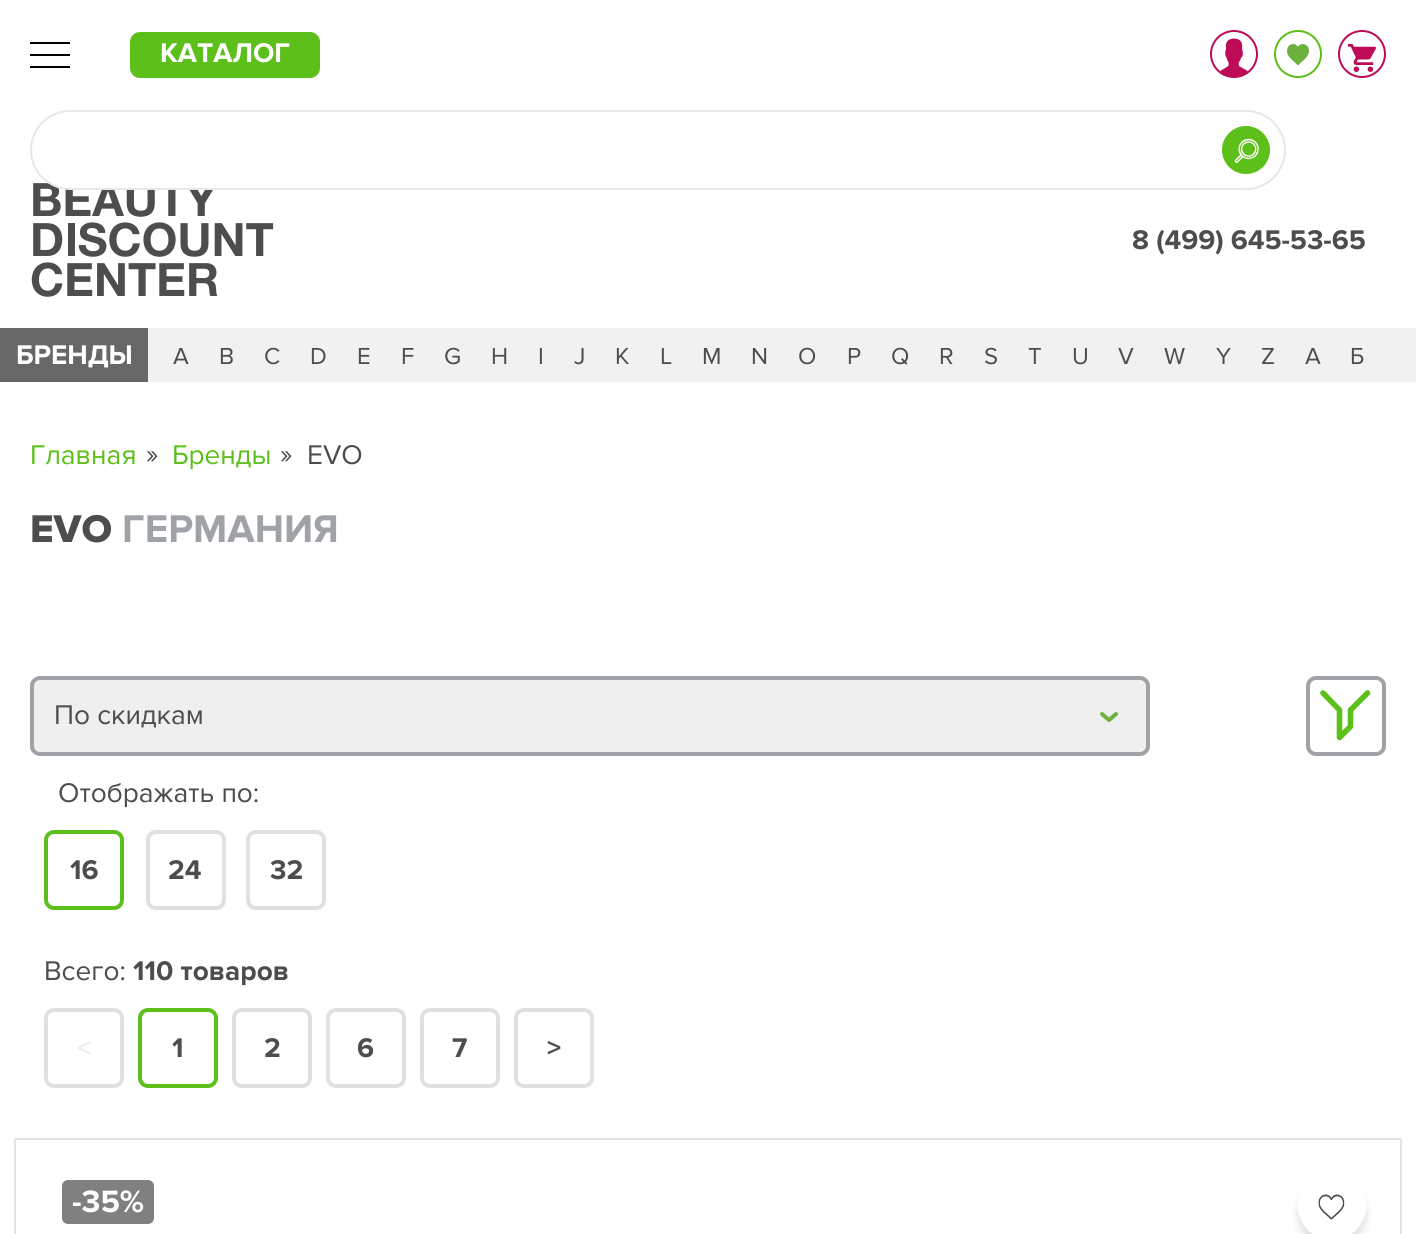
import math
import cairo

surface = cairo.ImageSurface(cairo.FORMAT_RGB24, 1416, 1234)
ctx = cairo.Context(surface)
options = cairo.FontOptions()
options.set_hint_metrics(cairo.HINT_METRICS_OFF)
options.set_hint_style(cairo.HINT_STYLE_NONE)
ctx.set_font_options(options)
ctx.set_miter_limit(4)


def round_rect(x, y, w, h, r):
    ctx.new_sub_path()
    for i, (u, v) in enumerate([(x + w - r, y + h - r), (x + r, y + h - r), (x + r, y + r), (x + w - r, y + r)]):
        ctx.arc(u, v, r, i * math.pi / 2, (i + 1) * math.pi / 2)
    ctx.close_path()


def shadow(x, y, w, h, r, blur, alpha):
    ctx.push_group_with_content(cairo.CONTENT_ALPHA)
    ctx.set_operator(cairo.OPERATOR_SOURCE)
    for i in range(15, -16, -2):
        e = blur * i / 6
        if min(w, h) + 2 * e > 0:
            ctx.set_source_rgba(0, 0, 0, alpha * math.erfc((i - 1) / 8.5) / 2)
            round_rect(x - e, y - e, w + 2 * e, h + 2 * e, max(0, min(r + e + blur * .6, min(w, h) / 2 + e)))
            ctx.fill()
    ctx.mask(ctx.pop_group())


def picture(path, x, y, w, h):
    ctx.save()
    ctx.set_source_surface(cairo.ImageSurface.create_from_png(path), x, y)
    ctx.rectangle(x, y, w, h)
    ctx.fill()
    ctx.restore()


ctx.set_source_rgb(1, 1, 1)
ctx.paint()
ctx.set_source_rgb(0, 0, 0)
ctx.rectangle(30, 54, 40, 2)
ctx.fill()
ctx.rectangle(30, 42, 40, 2)
ctx.fill()
ctx.rectangle(30, 66, 40, 2)
ctx.fill()
ctx.set_source_rgb(0.361, 0.749, 0.102)
round_rect(130, 32, 190, 46, 10)
ctx.fill()
ctx.select_font_face("Proxima Nova", cairo.FONT_SLANT_NORMAL, cairo.FONT_WEIGHT_BOLD)
ctx.set_font_size(28)
ctx.set_source_rgb(1, 1, 1)
ctx.move_to(160, 62)
ctx.show_text("КАТАЛОГ")
ctx.new_path()
ctx.arc(1234, 54, 23, 0, 2 * math.pi)
ctx.set_source_rgb(0.745, 0.043, 0.345)
ctx.stroke()
picture("img1.png", 1220, 38, 28, 40)
ctx.arc(1298, 54, 23, 0, 2 * math.pi)
ctx.set_source_rgb(0.361, 0.749, 0.102)
ctx.stroke()
picture("img2.png", 1287, 44, 22, 21)
ctx.arc(1362, 54, 23, 0, 2 * math.pi)
ctx.set_source_rgb(0.745, 0.043, 0.345)
ctx.stroke()
picture("img3.png", 1348, 44, 28, 28)
picture("img5.png", 31, 183, 243, 114)
ctx.set_source_rgb(1, 1, 1)
round_rect(31, 111, 1254, 78, 39)
ctx.fill_preserve()
ctx.set_source_rgb(0.906, 0.906, 0.906)
ctx.stroke()
ctx.set_source_rgb(0.361, 0.749, 0.102)
ctx.arc(1246, 150, 24, 0, 2 * math.pi)
ctx.fill()
picture("img4.png", 1234, 138, 25, 25)
ctx.set_source_rgb(0.302, 0.302, 0.302)
ctx.move_to(1132, 249)
ctx.show_text("8 (499) 645-53-65")
ctx.set_source_rgb(0.404, 0.404, 0.404)
ctx.rectangle(0, 328, 148, 54)
ctx.fill()
ctx.set_source_rgb(1, 1, 1)
ctx.move_to(16, 364)
ctx.show_text("БРЕНДЫ")
ctx.set_source_rgb(0.945, 0.945, 0.945)
ctx.rectangle(148, 328, 1268, 54)
ctx.fill()
ctx.select_font_face("Proxima Nova")
ctx.set_font_size(24)
ctx.set_source_rgb(0.302, 0.302, 0.302)
ctx.move_to(173, 364)
ctx.show_text("A")
ctx.move_to(219, 364)
ctx.show_text("B")
ctx.move_to(264, 364)
ctx.show_text("C")
ctx.move_to(310, 364)
ctx.show_text("D")
ctx.move_to(357, 364)
ctx.show_text("E")
ctx.move_to(401, 364)
ctx.show_text("F")
ctx.move_to(444, 364)
ctx.show_text("G")
ctx.move_to(491, 364)
ctx.show_text("H")
ctx.move_to(538, 364)
ctx.show_text("I")
ctx.move_to(574, 364)
ctx.show_text("J")
ctx.move_to(615, 364)
ctx.show_text("K")
ctx.move_to(660, 364)
ctx.show_text("L")
ctx.move_to(702, 364)
ctx.show_text("M")
ctx.move_to(751, 364)
ctx.show_text("N")
ctx.move_to(798, 364)
ctx.show_text("O")
ctx.move_to(847, 364)
ctx.show_text("P")
ctx.move_to(891, 364)
ctx.show_text("Q")
ctx.move_to(939, 364)
ctx.show_text("R")
ctx.move_to(984, 364)
ctx.show_text("S")
ctx.move_to(1028, 364)
ctx.show_text("T")
ctx.move_to(1072, 364)
ctx.show_text("U")
ctx.move_to(1118, 364)
ctx.show_text("V")
ctx.move_to(1164, 364)
ctx.show_text("W")
ctx.move_to(1216, 364)
ctx.show_text("Y")
ctx.move_to(1261, 364)
ctx.show_text("Z")
ctx.move_to(1305, 364)
ctx.show_text("А")
ctx.move_to(1350, 364)
ctx.show_text("Б")
ctx.set_font_size(28)
ctx.set_source_rgb(0.361, 0.749, 0.102)
ctx.move_to(30, 464)
ctx.show_text("Главная")
ctx.set_source_rgb(0.302, 0.302, 0.302)
ctx.move_to(146, 463)
ctx.show_text("»")
ctx.set_source_rgb(0.361, 0.749, 0.102)
ctx.move_to(172, 464)
ctx.show_text("Бренды")
ctx.set_source_rgb(0.302, 0.302, 0.302)
ctx.move_to(280, 463)
ctx.show_text("»")
ctx.move_to(307, 464)
ctx.show_text("EVO")
ctx.select_font_face("Proxima Nova ExtraBold")
ctx.set_font_size(40)
ctx.move_to(30, 542)
ctx.show_text("EVO")
ctx.select_font_face("Proxima Nova", cairo.FONT_SLANT_NORMAL, cairo.FONT_WEIGHT_BOLD)
ctx.set_source_rgb(0.624, 0.639, 0.655)
ctx.move_to(122, 542)
ctx.show_text("ГЕРМАНИЯ")
ctx.set_source_rgb(0.937, 0.937, 0.937)
round_rect(32, 678, 1116, 76, 8)
ctx.fill_preserve()
ctx.set_source_rgb(0.624, 0.639, 0.655)
ctx.set_line_width(4)
ctx.stroke()
ctx.select_font_face("Proxima Nova")
ctx.set_font_size(28)
ctx.set_source_rgb(0.302, 0.302, 0.302)
ctx.move_to(54, 724)
ctx.show_text("По скидкам")
ctx.new_path()
ctx.move_to(1116, 714)
ctx.line_to(1109, 720)
ctx.line_to(1102, 714)
ctx.set_source_rgb(0.424, 0.694, 0.243)
ctx.set_line_cap(cairo.LINE_CAP_ROUND)
ctx.set_line_join(cairo.LINE_JOIN_ROUND)
ctx.stroke()
ctx.new_path()
ctx.move_to(1323, 693)
ctx.line_to(1339.5, 710)
ctx.line_to(1339.5, 737.5)
ctx.line_to(1350.5, 726.5)
ctx.line_to(1350.5, 710)
ctx.line_to(1367.5, 693)
ctx.set_source_rgb(0.361, 0.749, 0.102)
ctx.set_line_width(5.6)
ctx.stroke()
round_rect(1308, 678, 76, 76, 8)
ctx.set_source_rgb(0.624, 0.639, 0.655)
ctx.set_line_width(4)
ctx.set_line_cap(cairo.LINE_CAP_BUTT)
ctx.set_line_join(cairo.LINE_JOIN_MITER)
ctx.stroke()
ctx.set_source_rgb(0.302, 0.302, 0.302)
ctx.move_to(58, 802)
ctx.show_text("Отображать по:")
round_rect(46, 832, 76, 76, 8)
ctx.set_source_rgb(0.361, 0.749, 0.102)
ctx.stroke()
ctx.select_font_face("Proxima Nova", cairo.FONT_SLANT_NORMAL, cairo.FONT_WEIGHT_BOLD)
ctx.set_source_rgb(0.302, 0.302, 0.302)
ctx.move_to(70, 879)
ctx.show_text("16")
round_rect(148, 832, 76, 76, 8)
ctx.set_source_rgb(0.878, 0.878, 0.878)
ctx.stroke()
ctx.set_source_rgb(0.302, 0.302, 0.302)
ctx.move_to(168, 879)
ctx.show_text("24")
round_rect(248, 832, 76, 76, 8)
ctx.set_source_rgb(0.878, 0.878, 0.878)
ctx.stroke()
ctx.set_source_rgb(0.302, 0.302, 0.302)
ctx.move_to(270, 879)
ctx.show_text("32")
ctx.select_font_face("Proxima Nova")
ctx.move_to(44, 980)
ctx.show_text("Всего:")
ctx.select_font_face("Proxima Nova", cairo.FONT_SLANT_NORMAL, cairo.FONT_WEIGHT_BOLD)
ctx.move_to(133, 980)
ctx.show_text("110 товаров")
round_rect(46, 1010, 76, 76, 8)
ctx.set_source_rgb(0.878, 0.878, 0.878)
ctx.stroke()
ctx.set_source_rgb(0.933, 0.925, 0.937)
ctx.move_to(77, 1057)
ctx.show_text("<")
round_rect(140, 1010, 76, 76, 8)
ctx.set_source_rgb(0.361, 0.749, 0.102)
ctx.stroke()
ctx.set_source_rgb(0.302, 0.302, 0.302)
ctx.move_to(172, 1057)
ctx.show_text("1")
round_rect(234, 1010, 76, 76, 8)
ctx.set_source_rgb(0.878, 0.878, 0.878)
ctx.stroke()
ctx.set_source_rgb(0.302, 0.302, 0.302)
ctx.move_to(264, 1057)
ctx.show_text("2")
round_rect(328, 1010, 76, 76, 8)
ctx.set_source_rgb(0.878, 0.878, 0.878)
ctx.stroke()
ctx.set_source_rgb(0.302, 0.302, 0.302)
ctx.move_to(357, 1057)
ctx.show_text("6")
round_rect(422, 1010, 76, 76, 8)
ctx.set_source_rgb(0.878, 0.878, 0.878)
ctx.stroke()
ctx.set_source_rgb(0.302, 0.302, 0.302)
ctx.move_to(452, 1057)
ctx.show_text("7")
round_rect(516, 1010, 76, 76, 8)
ctx.set_source_rgb(0.878, 0.878, 0.878)
ctx.stroke()
ctx.set_source_rgb(0.302, 0.302, 0.302)
ctx.move_to(547, 1057)
ctx.show_text(">")
ctx.rectangle(15, 1139, 1386, 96)
ctx.set_source_rgb(0.894, 0.894, 0.894)
ctx.set_line_width(2)
ctx.stroke()
ctx.set_source_rgb(0.502, 0.502, 0.502)
round_rect(62, 1180, 92, 44, 6)
ctx.fill()
ctx.set_font_size(32)
ctx.set_source_rgb(1, 1, 1)
ctx.move_to(72, 1212)
ctx.show_text("-35%")
ctx.save()
ctx.set_fill_rule(cairo.FILL_RULE_EVEN_ODD)
ctx.new_path()
ctx.move_to(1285, 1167)
ctx.line_to(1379, 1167)
ctx.line_to(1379, 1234)
ctx.line_to(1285, 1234)
ctx.close_path()
ctx.move_to(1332, 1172)
ctx.curve_to(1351, 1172, 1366, 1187, 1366, 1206)
ctx.curve_to(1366, 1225, 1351, 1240, 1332, 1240)
ctx.curve_to(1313, 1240, 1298, 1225, 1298, 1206)
ctx.curve_to(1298, 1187, 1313, 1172, 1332, 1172)
ctx.close_path()
ctx.clip()
ctx.set_source_rgb(0, 0, 0)
shadow(1298, 1180, 68, 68, 34, 4, 0.13)
ctx.restore()
picture("img6.png", 1318, 1194, 27, 26)
surface.write_to_png("page.png")
